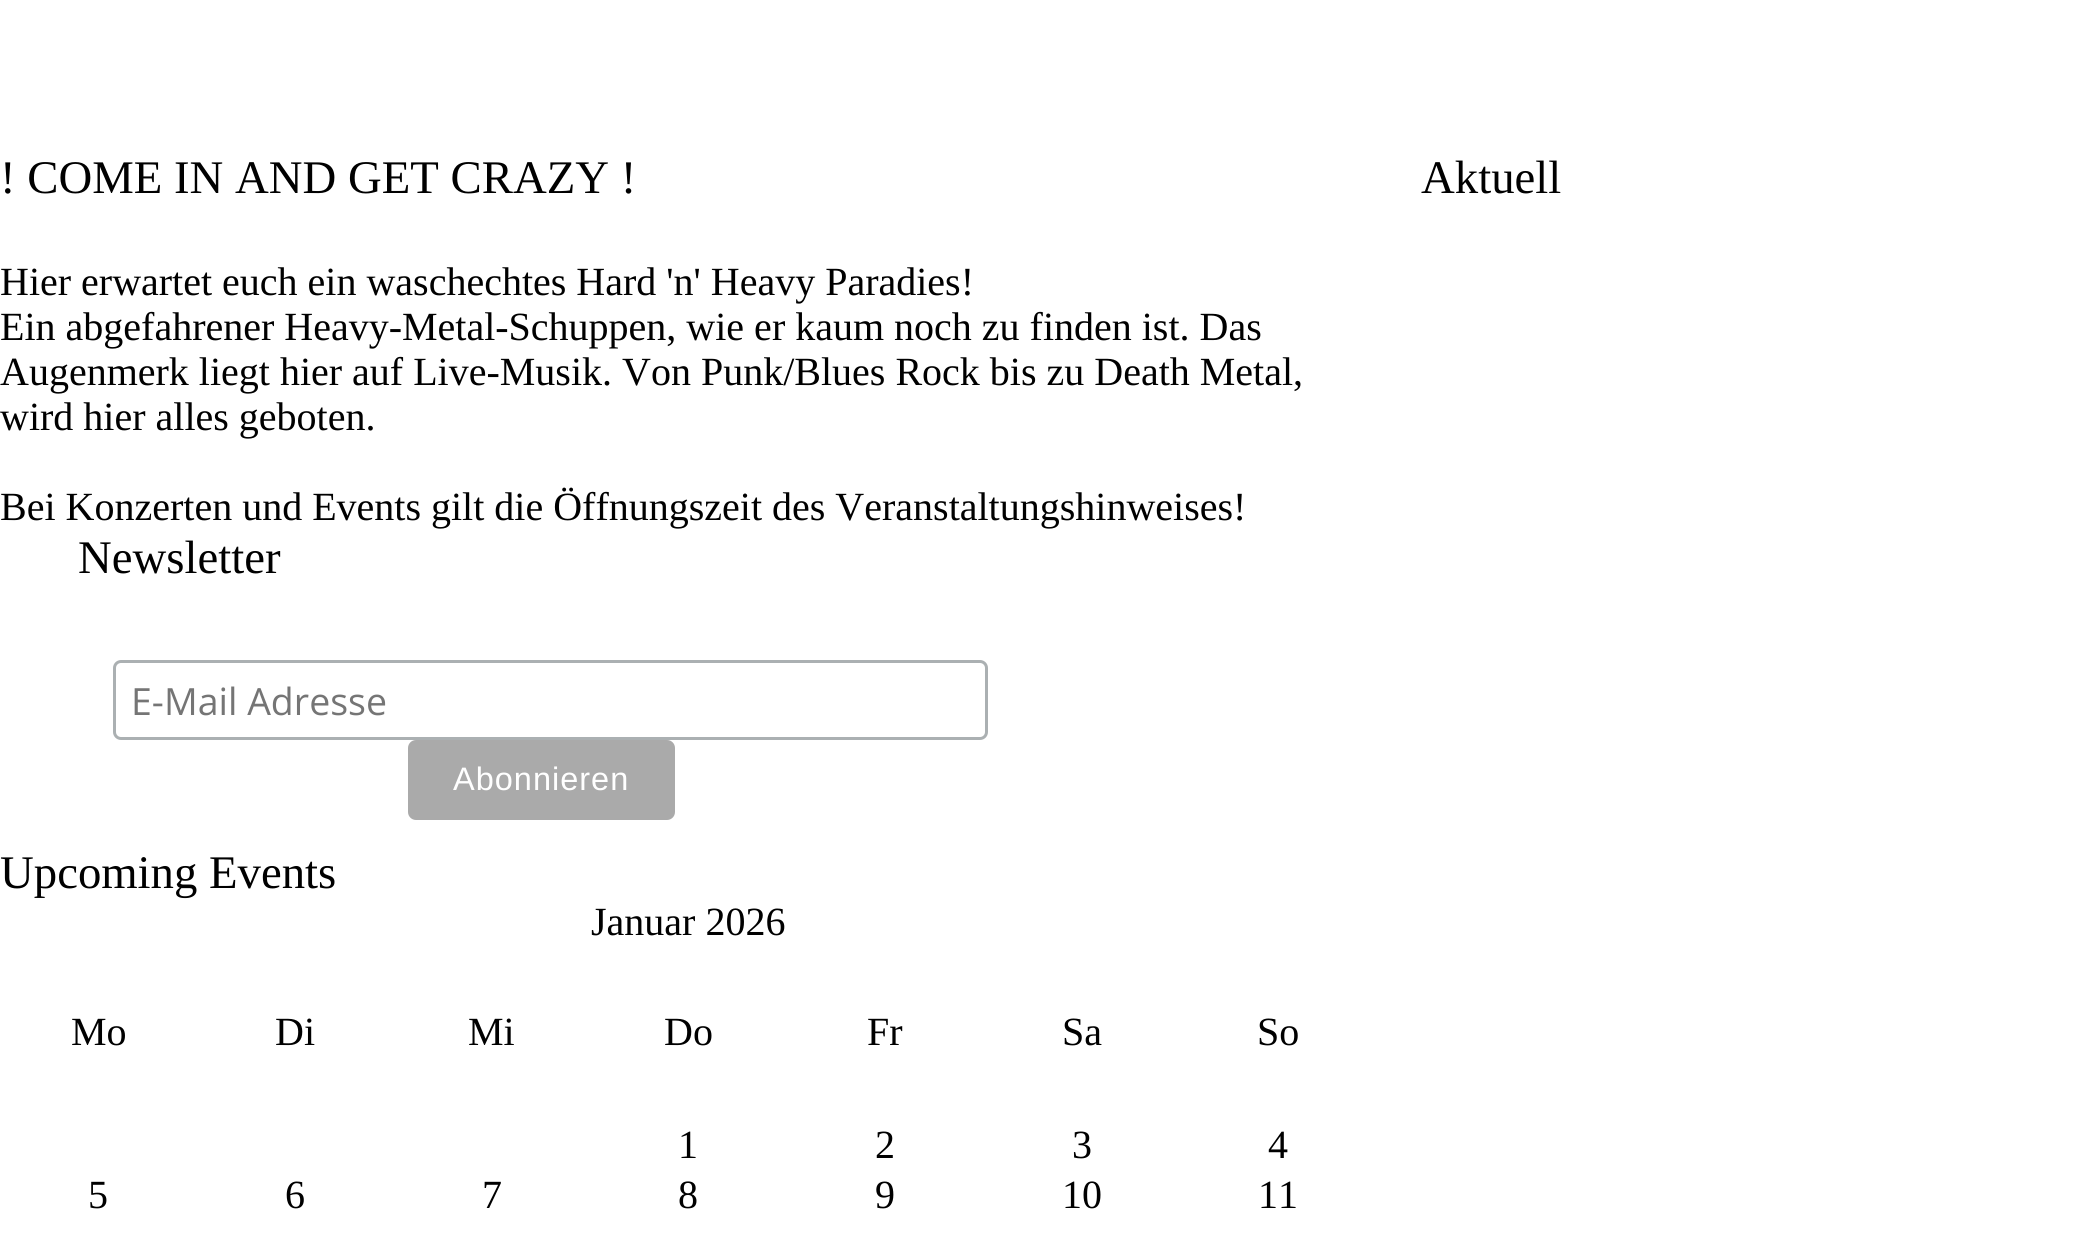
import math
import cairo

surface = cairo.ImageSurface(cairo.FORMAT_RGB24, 2087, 1237)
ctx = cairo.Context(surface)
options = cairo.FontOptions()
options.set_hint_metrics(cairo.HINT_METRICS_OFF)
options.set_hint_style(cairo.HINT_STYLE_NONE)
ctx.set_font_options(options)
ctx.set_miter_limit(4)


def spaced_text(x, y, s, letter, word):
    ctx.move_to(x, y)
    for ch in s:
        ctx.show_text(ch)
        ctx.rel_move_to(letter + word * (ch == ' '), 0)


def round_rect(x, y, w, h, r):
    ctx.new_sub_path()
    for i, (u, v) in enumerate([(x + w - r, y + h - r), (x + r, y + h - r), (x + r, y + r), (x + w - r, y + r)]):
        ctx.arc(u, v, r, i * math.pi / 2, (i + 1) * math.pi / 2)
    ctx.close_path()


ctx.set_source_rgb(1, 1, 1)
ctx.paint()
ctx.select_font_face("Liberation Serif")
ctx.set_font_size(46.75)
ctx.set_source_rgb(0, 0, 0)
ctx.move_to(0, 193)
ctx.show_text("! COME IN AND GET CRAZY !")
ctx.set_font_size(40)
ctx.move_to(0, 295)
ctx.show_text("Hier erwartet euch ein waschechtes Hard 'n' Heavy Paradies!")
ctx.move_to(0, 340)
ctx.show_text("Ein abgefahrener Heavy-Metal-Schuppen, wie er kaum noch zu finden ist. Das")
ctx.move_to(0, 385)
ctx.show_text("Augenmerk liegt hier auf Live-Musik. Von Punk/Blues Rock bis zu Death Metal,")
ctx.move_to(0, 430)
ctx.show_text("wird hier alles geboten.")
ctx.move_to(0, 520)
ctx.show_text("Bei Konzerten und Events gilt die Öffnungszeit des Veranstaltungshinweises!")
ctx.set_font_size(46.75)
ctx.move_to(78, 573)
ctx.show_text("Newsletter")
round_rect(114.5, 661.5, 872, 77, 6.5)
ctx.set_source_rgb(0.671, 0.69, 0.698)
ctx.set_line_width(3)
ctx.stroke()
ctx.select_font_face("Open Sans")
ctx.set_font_size(37.5)
ctx.set_source_rgb(0.459, 0.459, 0.459)
ctx.move_to(131, 715)
ctx.show_text("E-Mail Adresse")
ctx.set_source_rgb(0.667, 0.667, 0.667)
round_rect(408, 740, 267, 80, 8)
ctx.fill()
ctx.select_font_face("Liberation Sans")
ctx.set_font_size(32.5)
ctx.set_source_rgb(1, 1, 1)
spaced_text(453, 790, "Abonnieren", 1, 0)
ctx.select_font_face("Liberation Serif")
ctx.set_font_size(46.75)
ctx.set_source_rgb(0, 0, 0)
ctx.move_to(0, 888)
ctx.show_text("Upcoming Events")
ctx.set_font_size(40)
ctx.move_to(591, 935)
ctx.show_text("Januar 2026")
ctx.move_to(71, 1045)
ctx.show_text("Mo")
ctx.move_to(275, 1045)
ctx.show_text("Di")
ctx.move_to(468, 1045)
ctx.show_text("Mi")
ctx.move_to(664, 1045)
ctx.show_text("Do")
ctx.move_to(867, 1045)
ctx.show_text("Fr")
ctx.move_to(1062, 1045)
ctx.show_text("Sa")
ctx.move_to(1257, 1045)
ctx.show_text("So")
ctx.move_to(678, 1158)
ctx.show_text("1")
ctx.move_to(875, 1158)
ctx.show_text("2")
ctx.move_to(1072, 1158)
ctx.show_text("3")
ctx.move_to(1268, 1158)
ctx.show_text("4")
ctx.move_to(88, 1208)
ctx.show_text("5")
ctx.move_to(285, 1208)
ctx.show_text("6")
ctx.move_to(482, 1208)
ctx.show_text("7")
ctx.move_to(678, 1208)
ctx.show_text("8")
ctx.move_to(875, 1208)
ctx.show_text("9")
ctx.move_to(1062, 1208)
ctx.show_text("10")
ctx.move_to(1258, 1208)
ctx.show_text("11")
ctx.set_font_size(46.75)
ctx.move_to(1421, 193)
ctx.show_text("Aktuell")
surface.write_to_png("page.png")
